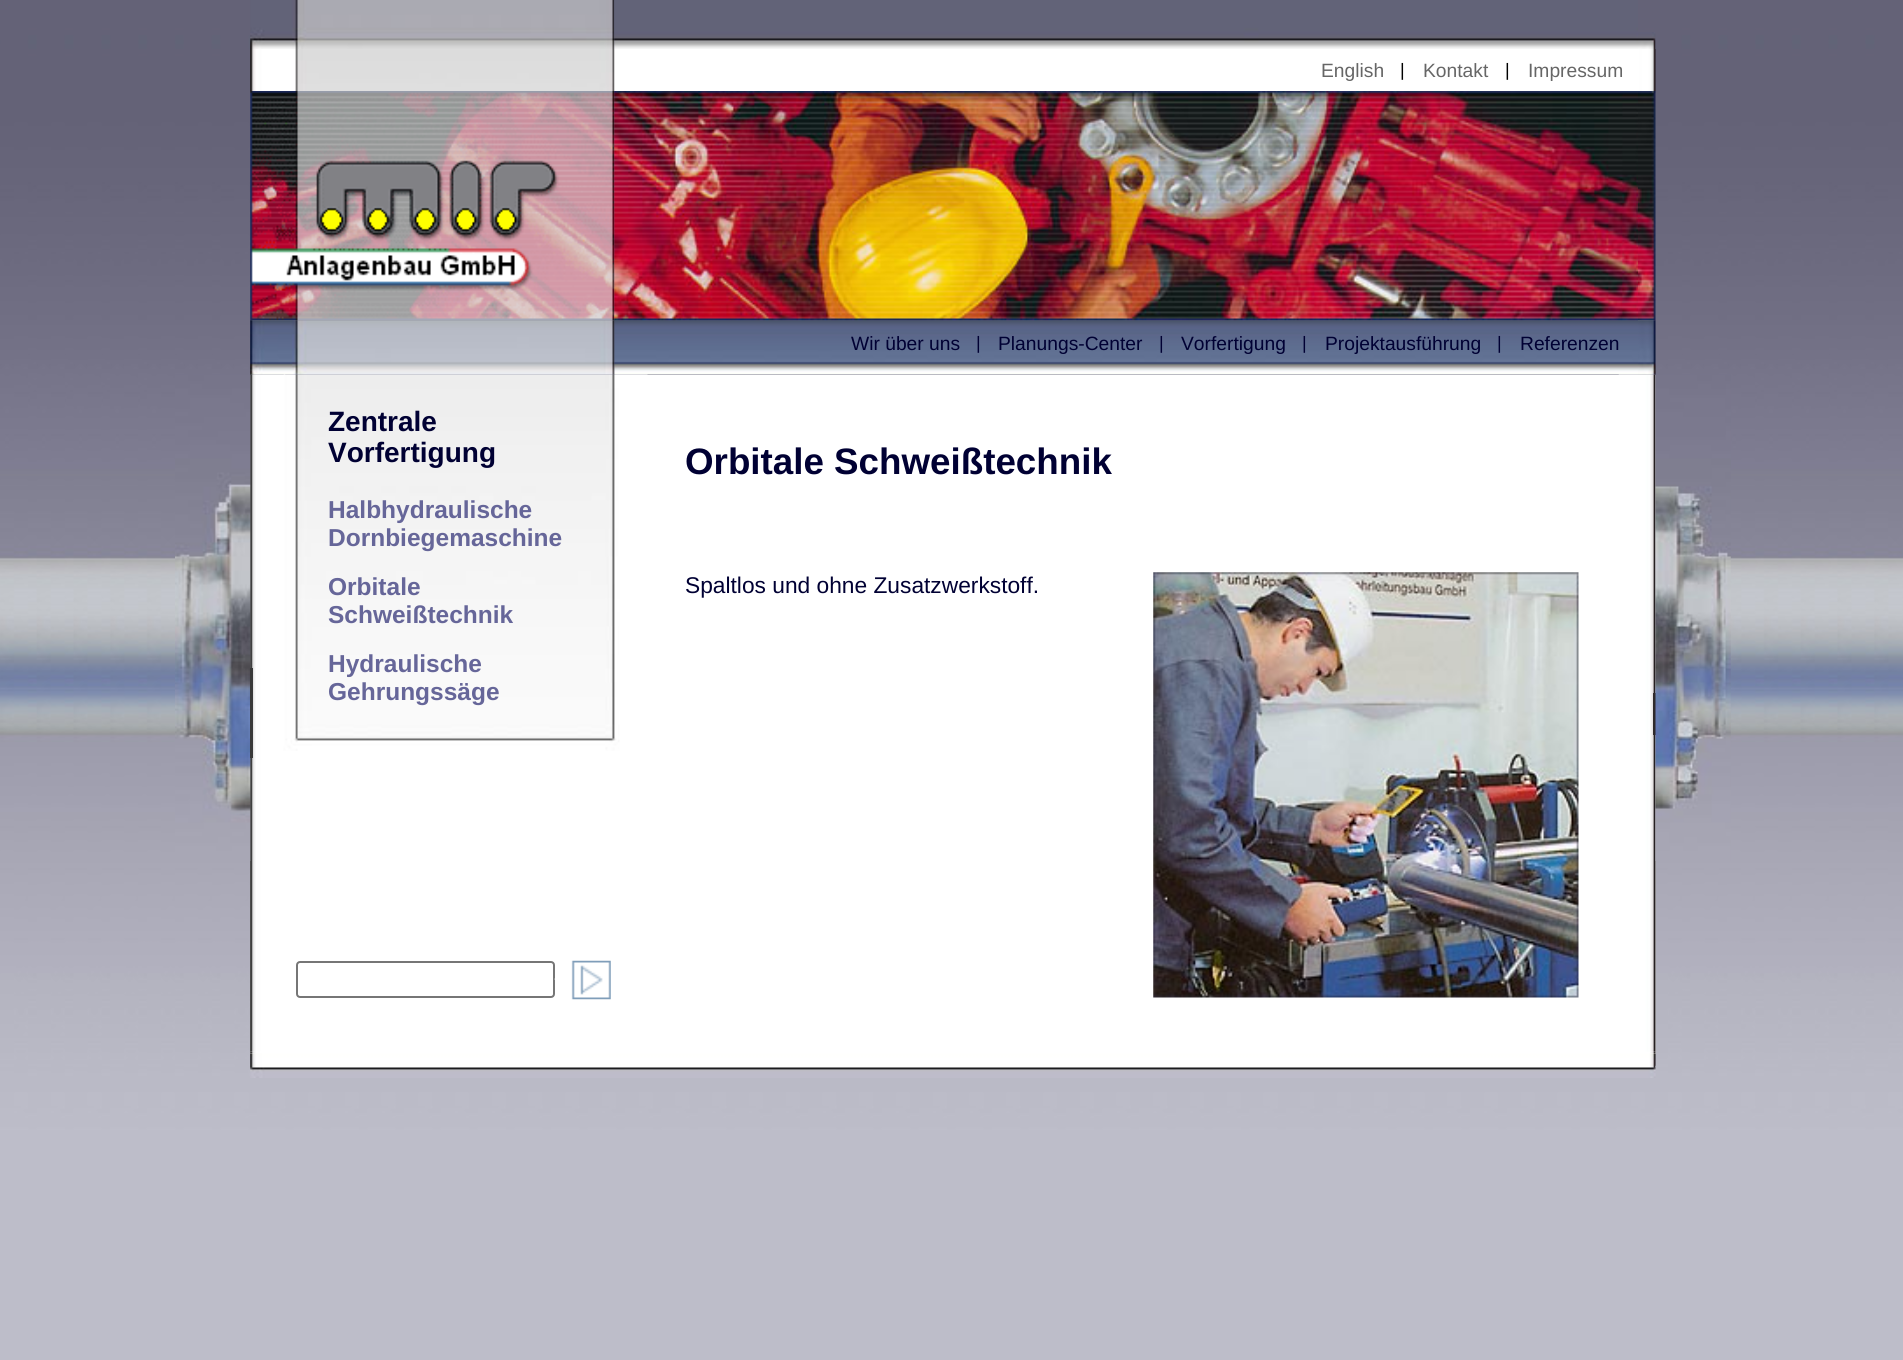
import math
import cairo

surface = cairo.ImageSurface(cairo.FORMAT_RGB24, 1903, 1360)
ctx = cairo.Context(surface)
options = cairo.FontOptions()
options.set_hint_metrics(cairo.HINT_METRICS_OFF)
options.set_hint_style(cairo.HINT_STYLE_NONE)
ctx.set_font_options(options)
ctx.set_miter_limit(4)


def round_rect(x, y, w, h, r):
    ctx.new_sub_path()
    for i, (u, v) in enumerate([(x + w - r, y + h - r), (x + r, y + h - r), (x + r, y + r), (x + w - r, y + r)]):
        ctx.arc(u, v, r, i * math.pi / 2, (i + 1) * math.pi / 2)
    ctx.close_path()


def picture(path, x, y, w, h):
    ctx.save()
    ctx.set_source_surface(cairo.ImageSurface.create_from_png(path), x, y)
    ctx.rectangle(x, y, w, h)
    ctx.fill()
    ctx.restore()


ctx.set_source_rgb(1, 1, 1)
ctx.paint()
picture("img1.png", 0, 0, 1903, 1360)
picture("img2.png", 250, 0, 365, 49)
picture("img3.png", 614, 0, 1024, 49)
picture("img4.png", 1638, 32, 18, 17)
ctx.set_source_rgba(0.384, 0.384, 0.471, 0.5)
ctx.rectangle(1655, 38, 1, 11)
ctx.fill()
ctx.set_source_rgb(1, 1, 1)
ctx.rectangle(614, 49, 1024, 42)
ctx.fill()
picture("img5.png", 250, 49, 365, 42)
ctx.select_font_face("Liberation Sans")
ctx.set_font_size(19.25)
ctx.set_source_rgb(0.4, 0.4, 0.4)
ctx.move_to(1321, 77)
ctx.show_text("English")
ctx.set_font_size(18)
ctx.set_source_rgb(0, 0, 0)
ctx.move_to(1400, 76)
ctx.show_text("|")
ctx.set_font_size(19.25)
ctx.set_source_rgb(0.4, 0.4, 0.4)
ctx.move_to(1423, 77)
ctx.show_text("Kontakt")
ctx.set_font_size(18)
ctx.set_source_rgb(0, 0, 0)
ctx.move_to(1505, 76)
ctx.show_text("|")
ctx.set_font_size(19.25)
ctx.set_source_rgb(0.4, 0.4, 0.4)
ctx.move_to(1528, 77)
ctx.show_text("Impressum")
picture("img6.png", 1638, 49, 18, 42)
picture("img11.png", 614, 320, 1024, 55)
picture("img7.png", 250, 91, 365, 230)
picture("img8.png", 614, 91, 1024, 230)
picture("img9.png", 1638, 91, 18, 230)
ctx.set_source_rgb(1, 1, 1)
ctx.rectangle(250, 375, 1406, 679)
ctx.fill()
picture("img14.png", 250, 374, 34, 678)
picture("img15.png", 283, 374, 365, 377)
picture("img10.png", 250, 320, 365, 55)
ctx.set_source_rgb(0, 0, 0.2)
ctx.move_to(851, 350)
ctx.show_text("Wir über uns")
ctx.set_font_size(18)
ctx.move_to(976, 349)
ctx.show_text("|")
ctx.set_font_size(19.25)
ctx.move_to(998, 350)
ctx.show_text("Planungs-Center")
ctx.set_font_size(18)
ctx.move_to(1159, 349)
ctx.show_text("|")
ctx.set_font_size(19.25)
ctx.move_to(1181, 350)
ctx.show_text("Vorfertigung")
ctx.set_font_size(18)
ctx.move_to(1302, 349)
ctx.show_text("|")
ctx.set_font_size(19.25)
ctx.move_to(1325, 350)
ctx.show_text("Projektausführung")
ctx.set_font_size(18)
ctx.move_to(1497, 349)
ctx.show_text("|")
ctx.set_font_size(19.25)
ctx.move_to(1520, 350)
ctx.show_text("Referenzen")
picture("img20.png", 1618, 374, 38, 678)
picture("img12.png", 1638, 320, 18, 55)
picture("img13.png", 175, 374, 76, 487)
ctx.set_source_rgb(0.224, 0.224, 0.224)
ctx.rectangle(250, 668, 3, 90)
ctx.fill()
picture("img16.png", 283, 374, 3, 1)
ctx.select_font_face("Liberation Sans", cairo.FONT_SLANT_NORMAL, cairo.FONT_WEIGHT_BOLD)
ctx.set_font_size(28)
ctx.set_source_rgb(0, 0, 0.2)
ctx.move_to(328, 431)
ctx.show_text("Zentrale")
ctx.move_to(328, 462)
ctx.show_text("Vorfertigung")
ctx.set_font_size(24.5)
ctx.set_source_rgb(0.4, 0.4, 0.6)
ctx.move_to(328, 518)
ctx.show_text("Halbhydraulische")
ctx.move_to(328, 546)
ctx.show_text("Dornbiegemaschine")
ctx.move_to(328, 595)
ctx.show_text("Orbitale")
ctx.move_to(328, 623)
ctx.show_text("Schweißtechnik")
ctx.move_to(328, 672)
ctx.show_text("Hydraulische")
ctx.move_to(328, 700)
ctx.show_text("Gehrungssäge")
round_rect(297, 962, 257, 35, 3)
ctx.set_source_rgb(0.463, 0.463, 0.463)
ctx.stroke()
picture("img17.png", 554, 978, 1, 2)
picture("img18.png", 571, 960, 40, 40)
ctx.set_font_size(36.75)
ctx.set_source_rgb(0, 0, 0.2)
ctx.move_to(685, 474)
ctx.show_text("Orbitale Schweißtechnik")
ctx.select_font_face("Liberation Sans")
ctx.set_font_size(22.75)
ctx.move_to(685, 593)
ctx.show_text("Spaltlos und ohne Zusatzwerkstoff.")
picture("img19.png", 1153, 572, 426, 426)
ctx.set_source_rgb(0.184, 0.161, 0.169)
ctx.rectangle(1653, 693, 3, 42)
ctx.fill()
picture("img21.png", 250, 1051, 6, 3)
picture("img22.png", 1650, 1051, 6, 3)
picture("img23.png", 1655, 374, 76, 487)
picture("img24.png", 250, 1053, 1406, 25)
picture("img25.png", 1655, 1065, 1, 3)
surface.write_to_png("page.png")
